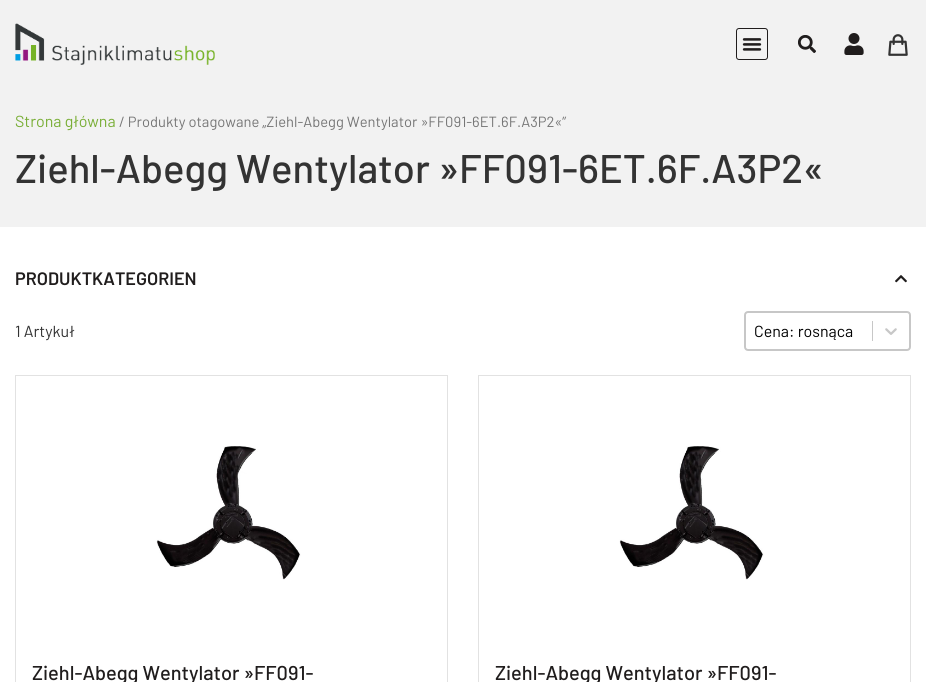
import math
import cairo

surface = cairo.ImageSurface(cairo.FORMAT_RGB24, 926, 682)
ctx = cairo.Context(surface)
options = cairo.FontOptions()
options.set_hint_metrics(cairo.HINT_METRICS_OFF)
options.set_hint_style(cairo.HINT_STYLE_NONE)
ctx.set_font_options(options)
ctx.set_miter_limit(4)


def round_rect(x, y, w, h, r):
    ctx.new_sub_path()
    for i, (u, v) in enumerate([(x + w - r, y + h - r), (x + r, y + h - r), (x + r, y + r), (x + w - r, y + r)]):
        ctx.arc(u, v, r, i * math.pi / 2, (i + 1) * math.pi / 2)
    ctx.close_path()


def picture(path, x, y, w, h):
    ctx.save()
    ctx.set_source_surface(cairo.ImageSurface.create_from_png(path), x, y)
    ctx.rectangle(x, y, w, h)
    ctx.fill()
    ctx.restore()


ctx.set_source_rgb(1, 1, 1)
ctx.paint()
ctx.set_source_rgb(0.949, 0.949, 0.949)
ctx.rectangle(0, 0, 926, 227)
ctx.fill()
picture("img1.png", 15, 23, 200, 42)
round_rect(736.5, 28.5, 31, 31, 2.5)
ctx.set_source_rgb(0.125, 0.114, 0.114)
ctx.set_line_width(1)
ctx.stroke()
picture("img2.png", 742, 38, 20, 13)
picture("img3.png", 798, 35, 18, 18)
picture("img4.png", 844, 33, 20, 22)
picture("img5.png", 888, 34, 20, 22)
ctx.select_font_face("Barlow")
ctx.set_font_size(16)
ctx.set_source_rgb(0.475, 0.682, 0.212)
ctx.move_to(15, 127)
ctx.show_text("Strona główna")
ctx.set_font_size(14.75)
ctx.set_source_rgb(0.463, 0.463, 0.463)
ctx.move_to(119, 127)
ctx.show_text("/ Produkty otagowane „Ziehl-Abegg Wentylator »FF091-6ET.6F.A3P2«”")
ctx.select_font_face("Barlow Medium")
ctx.set_font_size(40)
ctx.set_source_rgb(0.2, 0.2, 0.2)
ctx.move_to(15, 183)
ctx.show_text("Ziehl-Abegg Wentylator »FF091-6ET.6F.A3P2«")
ctx.select_font_face("Barlow SemiBold")
ctx.set_font_size(18)
ctx.set_source_rgb(0.125, 0.114, 0.114)
ctx.move_to(15, 285)
ctx.show_text("PRODUKTKATEGORIEN")
picture("img6.png", 895, 275, 12, 8)
ctx.select_font_face("Barlow")
ctx.set_font_size(16)
ctx.set_source_rgb(0.2, 0.2, 0.2)
ctx.move_to(15, 337)
ctx.show_text("1 Artykuł")
round_rect(745, 312, 165, 38, 3)
ctx.set_source_rgb(0.78, 0.78, 0.78)
ctx.set_line_width(2)
ctx.stroke()
ctx.set_source_rgb(0, 0, 0)
ctx.move_to(754, 337)
ctx.show_text("Cena: rosnąca")
ctx.set_source_rgb(0.78, 0.78, 0.78)
ctx.rectangle(872, 321, 1, 20)
ctx.fill()
picture("img7.png", 885, 328, 12, 7)
ctx.rectangle(15.5, 375.5, 432, 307)
ctx.set_source_rgb(0.886, 0.886, 0.886)
ctx.set_line_width(1)
ctx.stroke()
picture("img8.png", 156, 446, 145, 134)
ctx.select_font_face("Barlow Medium")
ctx.set_font_size(20)
ctx.set_source_rgb(0.125, 0.114, 0.114)
ctx.move_to(32, 680)
ctx.show_text("Ziehl-Abegg Wentylator »FF091-")
ctx.rectangle(478.5, 375.5, 432, 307)
ctx.set_source_rgb(0.886, 0.886, 0.886)
ctx.stroke()
picture("img9.png", 619, 446, 145, 134)
ctx.set_source_rgb(0.125, 0.114, 0.114)
ctx.move_to(495, 680)
ctx.show_text("Ziehl-Abegg Wentylator »FF091-")
surface.write_to_png("page.png")
